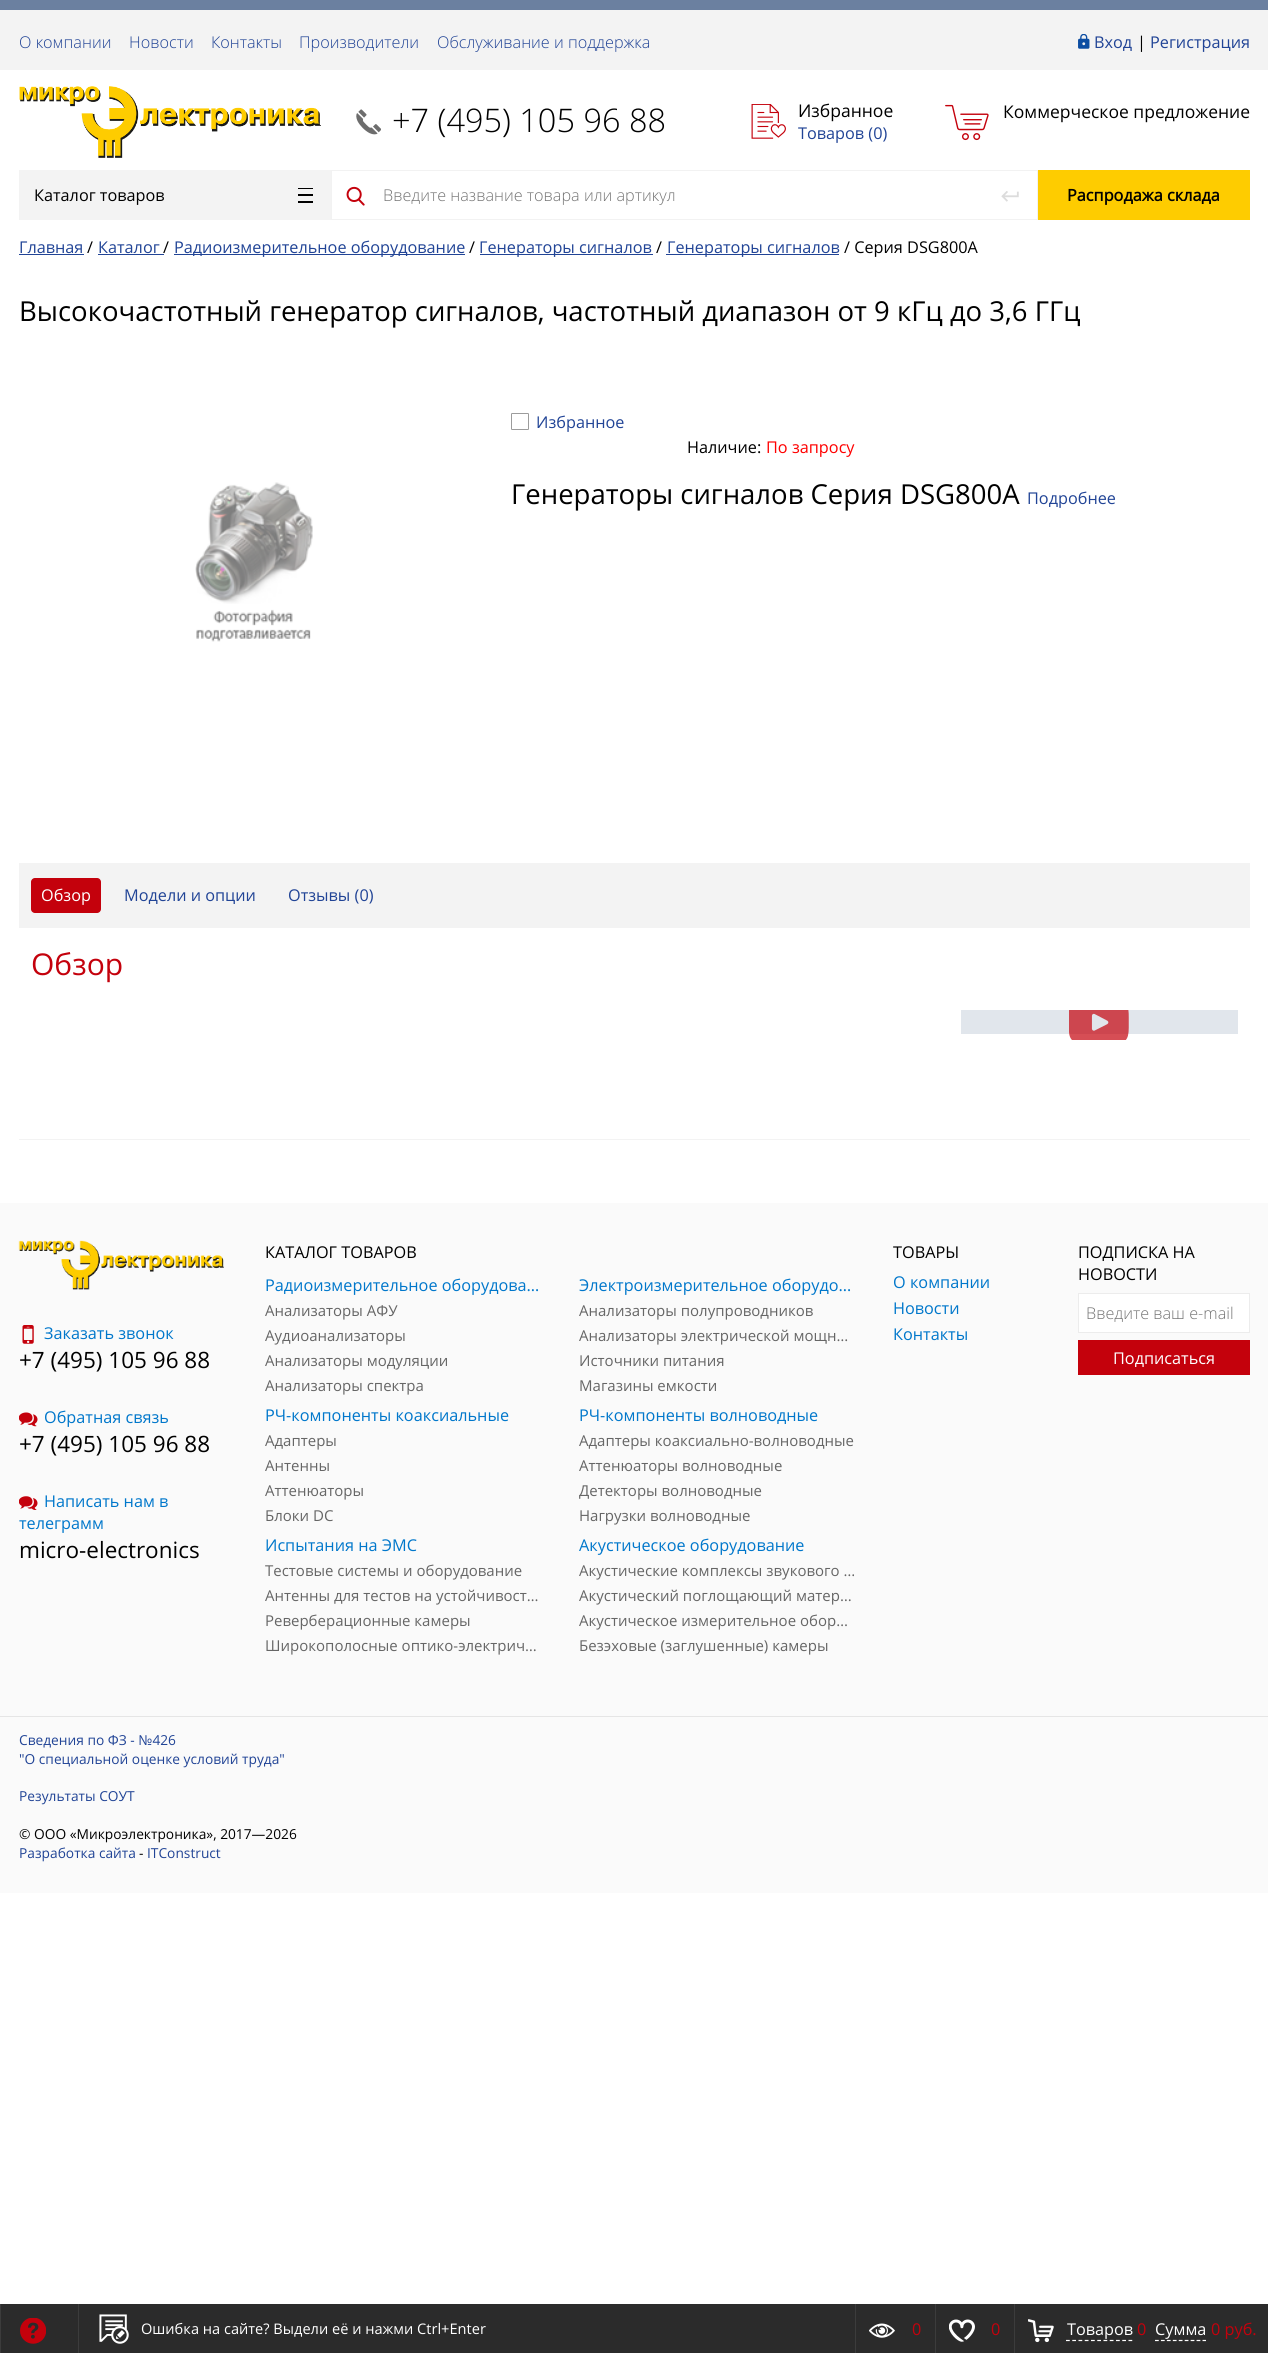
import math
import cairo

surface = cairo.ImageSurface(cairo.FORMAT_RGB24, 1268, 2353)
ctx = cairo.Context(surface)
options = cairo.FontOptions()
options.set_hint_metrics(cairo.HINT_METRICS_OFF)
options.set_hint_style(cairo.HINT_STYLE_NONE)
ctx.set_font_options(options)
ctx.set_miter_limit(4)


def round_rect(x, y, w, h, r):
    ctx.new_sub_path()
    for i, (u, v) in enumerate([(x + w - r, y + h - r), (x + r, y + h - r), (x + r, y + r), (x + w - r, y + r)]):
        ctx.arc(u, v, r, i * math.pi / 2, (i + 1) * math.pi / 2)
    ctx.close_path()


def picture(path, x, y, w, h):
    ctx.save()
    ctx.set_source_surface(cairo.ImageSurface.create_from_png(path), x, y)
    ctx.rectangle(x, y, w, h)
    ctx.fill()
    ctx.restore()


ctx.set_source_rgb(1, 1, 1)
ctx.paint()
ctx.set_source_rgb(0.42, 0.502, 0.627)
ctx.rectangle(0, 0, 1268, 10)
ctx.fill()
ctx.set_source_rgb(0.953, 0.953, 0.953)
ctx.rectangle(0, 10, 1268, 60)
ctx.fill()
ctx.select_font_face("Open Sans Light")
ctx.set_font_size(16.25)
ctx.set_source_rgb(0.129, 0.267, 0.588)
ctx.move_to(19, 48)
ctx.show_text("О компании")
ctx.move_to(129, 48)
ctx.show_text("Новости")
ctx.move_to(211, 48)
ctx.show_text("Контакты")
ctx.move_to(299, 48)
ctx.show_text("Производители")
ctx.move_to(437, 48)
ctx.show_text("Обслуживание и поддержка")
picture("img1.png", 1078, 34, 12, 15)
ctx.select_font_face("Open Sans")
ctx.move_to(1094, 48)
ctx.show_text("Вход")
ctx.set_source_rgb(0, 0, 0)
ctx.move_to(1137, 48)
ctx.show_text("|")
ctx.set_source_rgb(0.129, 0.267, 0.588)
ctx.move_to(1150, 48)
ctx.show_text("Регистрация")
picture("img2.png", 19, 86, 302, 72)
picture("img3.png", 356, 109, 25, 26)
ctx.select_font_face("Open Sans Light")
ctx.set_font_size(32.5)
ctx.set_source_rgb(0, 0, 0)
ctx.move_to(392, 132)
ctx.show_text("+7 (495) 105 96 88")
picture("img4.png", 751, 104, 35, 35)
ctx.select_font_face("Open Sans")
ctx.set_font_size(17.5)
ctx.move_to(798, 117)
ctx.show_text("Избранное")
ctx.set_font_size(16.25)
ctx.set_source_rgb(0.129, 0.267, 0.588)
ctx.move_to(798, 139)
ctx.show_text("Товаров (0)")
picture("img5.png", 945, 104, 44, 37)
ctx.set_font_size(17.5)
ctx.set_source_rgb(0, 0, 0)
ctx.move_to(1003, 118)
ctx.show_text("Коммерческое предложение")
ctx.set_source_rgb(0.953, 0.953, 0.953)
ctx.rectangle(19, 170, 312, 50)
ctx.fill()
ctx.set_font_size(16.25)
ctx.set_source_rgb(0, 0, 0)
ctx.move_to(34, 201)
ctx.show_text("Каталог товаров")
ctx.rectangle(298, 188, 15, 1)
ctx.fill()
ctx.rectangle(298, 194, 15, 2)
ctx.fill()
ctx.rectangle(298, 201, 15, 2)
ctx.fill()
ctx.rectangle(331.5, 170.5, 706, 49)
ctx.set_source_rgb(0.949, 0.949, 0.949)
ctx.set_line_width(1)
ctx.stroke()
picture("img6.png", 346, 186, 19, 20)
ctx.select_font_face("Open Sans Light")
ctx.set_source_rgb(0.459, 0.459, 0.459)
ctx.move_to(383, 201)
ctx.show_text("Введите название товара или артикул")
picture("img7.png", 1001, 191, 18, 11)
ctx.set_source_rgb(0.996, 0.8, 0)
ctx.rectangle(1038, 170, 212, 50)
ctx.fill()
ctx.select_font_face("Open Sans", cairo.FONT_SLANT_NORMAL, cairo.FONT_WEIGHT_BOLD)
ctx.set_source_rgb(0, 0, 0)
ctx.move_to(1067, 201)
ctx.show_text("Распродажа склада")
ctx.select_font_face("Open Sans")
ctx.set_source_rgb(0.129, 0.267, 0.588)
ctx.move_to(19, 253)
ctx.show_text("Главная")
ctx.rectangle(19, 254, 65, 1)
ctx.fill()
ctx.set_source_rgb(0, 0, 0)
ctx.move_to(87, 253)
ctx.show_text("/")
ctx.set_source_rgb(0.129, 0.267, 0.588)
ctx.move_to(98, 253)
ctx.show_text("Каталог")
ctx.rectangle(98, 254, 66, 1)
ctx.fill()
ctx.set_source_rgb(0, 0, 0)
ctx.move_to(163, 253)
ctx.show_text("/")
ctx.set_source_rgb(0.129, 0.267, 0.588)
ctx.rectangle(174, 254, 291, 1)
ctx.fill()
ctx.move_to(174, 253)
ctx.show_text("Радиоизмерительное оборудование")
ctx.set_source_rgb(0, 0, 0)
ctx.move_to(469, 253)
ctx.show_text("/")
ctx.set_source_rgb(0.129, 0.267, 0.588)
ctx.rectangle(480, 254, 173, 1)
ctx.fill()
ctx.move_to(479, 253)
ctx.show_text("Генераторы сигналов")
ctx.set_source_rgb(0, 0, 0)
ctx.move_to(656, 253)
ctx.show_text("/")
ctx.set_source_rgb(0.129, 0.267, 0.588)
ctx.rectangle(666, 254, 173, 1)
ctx.fill()
ctx.move_to(667, 253)
ctx.show_text("Генераторы сигналов")
ctx.set_source_rgb(0, 0, 0)
ctx.move_to(844, 253)
ctx.show_text("/ Серия DSG800A")
ctx.set_font_size(27.5)
ctx.move_to(19, 321)
ctx.show_text("Высокочастотный генератор сигналов, частотный диапазон от 9 кГц до 3,6 ГГц")
round_rect(511.5, 413.5, 17, 16, 0.5)
ctx.set_source_rgb(0.612, 0.612, 0.612)
ctx.stroke()
ctx.set_font_size(16.25)
ctx.set_source_rgb(0.129, 0.267, 0.588)
ctx.move_to(536, 428)
ctx.show_text("Избранное")
ctx.set_source_rgb(0, 0, 0)
ctx.move_to(687, 453)
ctx.show_text("Наличие:")
ctx.set_source_rgb(1, 0, 0)
ctx.move_to(766, 453)
ctx.show_text("По запросу")
ctx.set_font_size(27.5)
ctx.set_source_rgb(0, 0, 0)
ctx.move_to(511, 504)
ctx.show_text("Генераторы сигналов Серия DSG800A")
ctx.set_font_size(16.25)
ctx.set_source_rgb(0.129, 0.267, 0.588)
ctx.move_to(1027, 504)
ctx.show_text("Подробнее")
picture("img8.png", 195, 482, 118, 160)
ctx.set_source_rgb(0.953, 0.953, 0.953)
ctx.rectangle(19, 1139, 1231, 1)
ctx.fill()
ctx.rectangle(19, 863, 1231, 65)
ctx.fill()
ctx.set_source_rgb(0.769, 0.004, 0.047)
round_rect(31, 878, 70, 35, 4)
ctx.fill()
ctx.set_source_rgb(1, 1, 1)
ctx.move_to(41, 901)
ctx.show_text("Обзор")
ctx.set_source_rgb(0.129, 0.267, 0.588)
ctx.move_to(124, 901)
ctx.show_text("Модели и опции")
ctx.move_to(288, 901)
ctx.show_text("Отзывы (0)")
ctx.set_font_size(30)
ctx.set_source_rgb(0.769, 0.004, 0.047)
ctx.move_to(31, 975)
ctx.show_text("Обзор")
ctx.set_source_rgb(0.882, 0.902, 0.925)
ctx.rectangle(961, 1010, 277, 24)
ctx.fill()
picture("img9.png", 1069, 1010, 60, 30)
ctx.set_source_rgb(0.98, 0.98, 0.98)
ctx.rectangle(0, 1203, 1268, 690)
ctx.fill()
ctx.set_font_size(16.25)
ctx.set_source_rgb(0, 0, 0)
ctx.move_to(265, 1258)
ctx.show_text("КАТАЛОГ ТОВАРОВ")
ctx.set_source_rgb(0, 0.467, 0.796)
ctx.move_to(265, 1291)
ctx.show_text("Радиоизмерительное оборудова…")
ctx.set_font_size(15)
ctx.set_source_rgb(0.4, 0.4, 0.4)
ctx.move_to(265, 1316)
ctx.show_text("Анализаторы АФУ")
ctx.move_to(265, 1341)
ctx.show_text("Аудиоанализаторы")
ctx.move_to(265, 1366)
ctx.show_text("Анализаторы модуляции")
ctx.move_to(265, 1391)
ctx.show_text("Анализаторы спектра")
ctx.set_font_size(16.25)
ctx.set_source_rgb(0, 0.467, 0.796)
ctx.move_to(579, 1291)
ctx.show_text("Электроизмерительное оборудо…")
ctx.set_font_size(15)
ctx.set_source_rgb(0.4, 0.4, 0.4)
ctx.move_to(579, 1316)
ctx.show_text("Анализаторы полупроводников")
ctx.move_to(579, 1341)
ctx.show_text("Анализаторы электрической мощн…")
ctx.move_to(579, 1366)
ctx.show_text("Источники питания")
ctx.move_to(579, 1391)
ctx.show_text("Магазины емкости")
ctx.set_font_size(16.25)
ctx.set_source_rgb(0, 0.467, 0.796)
ctx.move_to(265, 1421)
ctx.show_text("РЧ-компоненты коаксиальные")
ctx.set_font_size(15)
ctx.set_source_rgb(0.4, 0.4, 0.4)
ctx.move_to(265, 1446)
ctx.show_text("Адаптеры")
ctx.move_to(265, 1471)
ctx.show_text("Антенны")
ctx.move_to(265, 1496)
ctx.show_text("Аттенюаторы")
ctx.move_to(265, 1521)
ctx.show_text("Блоки DC")
ctx.set_font_size(16.25)
ctx.set_source_rgb(0, 0.467, 0.796)
ctx.move_to(579, 1421)
ctx.show_text("РЧ-компоненты волноводные")
ctx.set_font_size(15)
ctx.set_source_rgb(0.4, 0.4, 0.4)
ctx.move_to(579, 1446)
ctx.show_text("Адаптеры коаксиально-волноводные")
ctx.move_to(579, 1471)
ctx.show_text("Аттенюаторы волноводные")
ctx.move_to(579, 1496)
ctx.show_text("Детекторы волноводные")
ctx.move_to(579, 1521)
ctx.show_text("Нагрузки волноводные")
ctx.set_font_size(16.25)
ctx.set_source_rgb(0, 0.467, 0.796)
ctx.move_to(265, 1551)
ctx.show_text("Испытания на ЭМС")
ctx.set_font_size(15)
ctx.set_source_rgb(0.4, 0.4, 0.4)
ctx.move_to(265, 1576)
ctx.show_text("Тестовые системы и оборудование")
ctx.move_to(265, 1601)
ctx.show_text("Антенны для тестов на устойчивост…")
ctx.move_to(265, 1626)
ctx.show_text("Реверберационные камеры")
ctx.move_to(265, 1651)
ctx.show_text("Широкополосные оптико-электрич…")
ctx.set_font_size(16.25)
ctx.set_source_rgb(0, 0.467, 0.796)
ctx.move_to(579, 1551)
ctx.show_text("Акустическое оборудование")
ctx.set_font_size(15)
ctx.set_source_rgb(0.4, 0.4, 0.4)
ctx.move_to(579, 1576)
ctx.show_text("Акустические комплексы звукового …")
ctx.move_to(579, 1601)
ctx.show_text("Акустический поглощающий матер…")
ctx.move_to(579, 1626)
ctx.show_text("Акустическое измерительное обор…")
ctx.move_to(579, 1651)
ctx.show_text("Безэховые (заглушенные) камеры")
ctx.set_font_size(16.25)
ctx.set_source_rgb(0, 0, 0)
ctx.move_to(893, 1258)
ctx.show_text("ТОВАРЫ")
ctx.set_source_rgb(0, 0.467, 0.796)
ctx.move_to(893, 1288)
ctx.show_text("О компании")
ctx.move_to(893, 1314)
ctx.show_text("Новости")
ctx.move_to(893, 1340)
ctx.show_text("Контакты")
ctx.set_source_rgb(0, 0, 0)
ctx.move_to(1078, 1258)
ctx.show_text("ПОДПИСКА НА")
ctx.move_to(1078, 1280)
ctx.show_text("НОВОСТИ")
ctx.set_source_rgb(1, 1, 1)
ctx.rectangle(1078.5, 1293.5, 171, 39)
ctx.fill_preserve()
ctx.set_source_rgb(0.922, 0.922, 0.922)
ctx.stroke()
ctx.select_font_face("Open Sans Light")
ctx.set_source_rgb(0.459, 0.459, 0.459)
ctx.move_to(1086, 1319)
ctx.show_text("Введите ваш e-mail")
ctx.set_source_rgb(0.769, 0.004, 0.047)
ctx.rectangle(1078, 1340, 172, 35)
ctx.fill()
ctx.select_font_face("Open Sans")
ctx.set_source_rgb(1, 1, 1)
ctx.move_to(1113, 1364)
ctx.show_text("Подписаться")
picture("img10.png", 18, 1240, 206, 50)
picture("img11.png", 22, 1325, 12, 19)
ctx.set_source_rgb(0, 0.467, 0.796)
ctx.move_to(44, 1339)
ctx.show_text("Заказать звонок")
ctx.set_font_size(22.5)
ctx.set_source_rgb(0, 0, 0)
ctx.move_to(19, 1368)
ctx.show_text("+7 (495) 105 96 88")
picture("img12.png", 19, 1412, 19, 15)
ctx.set_font_size(16.25)
ctx.set_source_rgb(0, 0.467, 0.796)
ctx.move_to(44, 1423)
ctx.show_text("Обратная связь")
ctx.set_font_size(22.5)
ctx.set_source_rgb(0, 0, 0)
ctx.move_to(19, 1452)
ctx.show_text("+7 (495) 105 96 88")
picture("img13.png", 19, 1496, 19, 14)
ctx.set_font_size(16.25)
ctx.set_source_rgb(0, 0.467, 0.796)
ctx.move_to(44, 1507)
ctx.show_text("Написать нам в")
ctx.move_to(19, 1529)
ctx.show_text("телеграмм")
ctx.set_font_size(22.5)
ctx.set_source_rgb(0, 0, 0)
ctx.move_to(19, 1558)
ctx.show_text("micro-electronics")
ctx.set_source_rgb(0.898, 0.898, 0.898)
ctx.rectangle(0, 1716, 1268, 1)
ctx.fill()
ctx.set_font_size(13.75)
ctx.set_source_rgb(0.129, 0.267, 0.588)
ctx.move_to(19, 1745)
ctx.show_text("Сведения по ФЗ - №426")
ctx.move_to(19, 1764)
ctx.show_text("\"О специальной оценке условий труда\"")
ctx.move_to(19, 1801)
ctx.show_text("Результаты СОУТ")
ctx.set_source_rgb(0, 0, 0)
ctx.move_to(19, 1839)
ctx.show_text("© ООО «Микроэлектроника», 2017—2026")
ctx.set_source_rgb(0.129, 0.267, 0.588)
ctx.move_to(19, 1858)
ctx.show_text("Разработка сайта")
ctx.set_source_rgb(0, 0, 0)
ctx.move_to(139, 1858)
ctx.show_text("-")
ctx.set_source_rgb(0.129, 0.267, 0.588)
ctx.move_to(147, 1858)
ctx.show_text("ITConstruct")
ctx.set_source_rgb(0.169, 0.169, 0.169)
ctx.rectangle(1, 2304, 1267, 49)
ctx.fill()
ctx.set_source_rgb(0.235, 0.235, 0.235)
ctx.rectangle(0, 2304, 1, 49)
ctx.fill()
picture("img14.png", 20, 2318, 26, 26)
ctx.rectangle(78, 2304, 1, 49)
ctx.fill()
picture("img15.png", 99, 2314, 30, 30)
ctx.set_font_size(14.6)
ctx.set_source_rgb(1, 1, 1)
ctx.move_to(141, 2334)
ctx.show_text("Ошибка на сайте? Выдели её и нажми Ctrl+Enter")
ctx.set_source_rgb(0.235, 0.235, 0.235)
ctx.rectangle(855, 2304, 1, 49)
ctx.fill()
picture("img16.png", 869, 2323, 26, 15)
ctx.set_font_size(16.25)
ctx.set_source_rgb(0.769, 0.004, 0.047)
ctx.move_to(912, 2335)
ctx.show_text("0")
ctx.set_source_rgb(0.235, 0.235, 0.235)
ctx.rectangle(935, 2304, 1, 49)
ctx.fill()
picture("img17.png", 949, 2319, 26, 23)
ctx.set_source_rgb(0.769, 0.004, 0.047)
ctx.move_to(991, 2335)
ctx.show_text("0")
ctx.set_source_rgb(0.235, 0.235, 0.235)
ctx.rectangle(1014, 2304, 1, 49)
ctx.fill()
picture("img18.png", 1028, 2319, 26, 24)
ctx.set_source_rgb(1, 1, 1)
ctx.move_to(1067, 2335)
ctx.show_text("Товаров")
ctx.new_path()
ctx.move_to(1066, 2340.5)
ctx.line_to(1132.5, 2340.5)
ctx.set_line_width(1.2)
ctx.set_dash([3.75, 2.5])
ctx.stroke()
ctx.set_source_rgb(0.769, 0.004, 0.047)
ctx.move_to(1137, 2335)
ctx.show_text("0")
ctx.set_source_rgb(1, 1, 1)
ctx.move_to(1155, 2335)
ctx.show_text("Сумма")
ctx.new_path()
ctx.move_to(1155, 2340.5)
ctx.line_to(1206, 2340.5)
ctx.set_dash([3.75, 2.19])
ctx.stroke()
ctx.set_source_rgb(0.769, 0.004, 0.047)
ctx.move_to(1211, 2335)
ctx.show_text("0 руб.")
surface.write_to_png("page.png")
